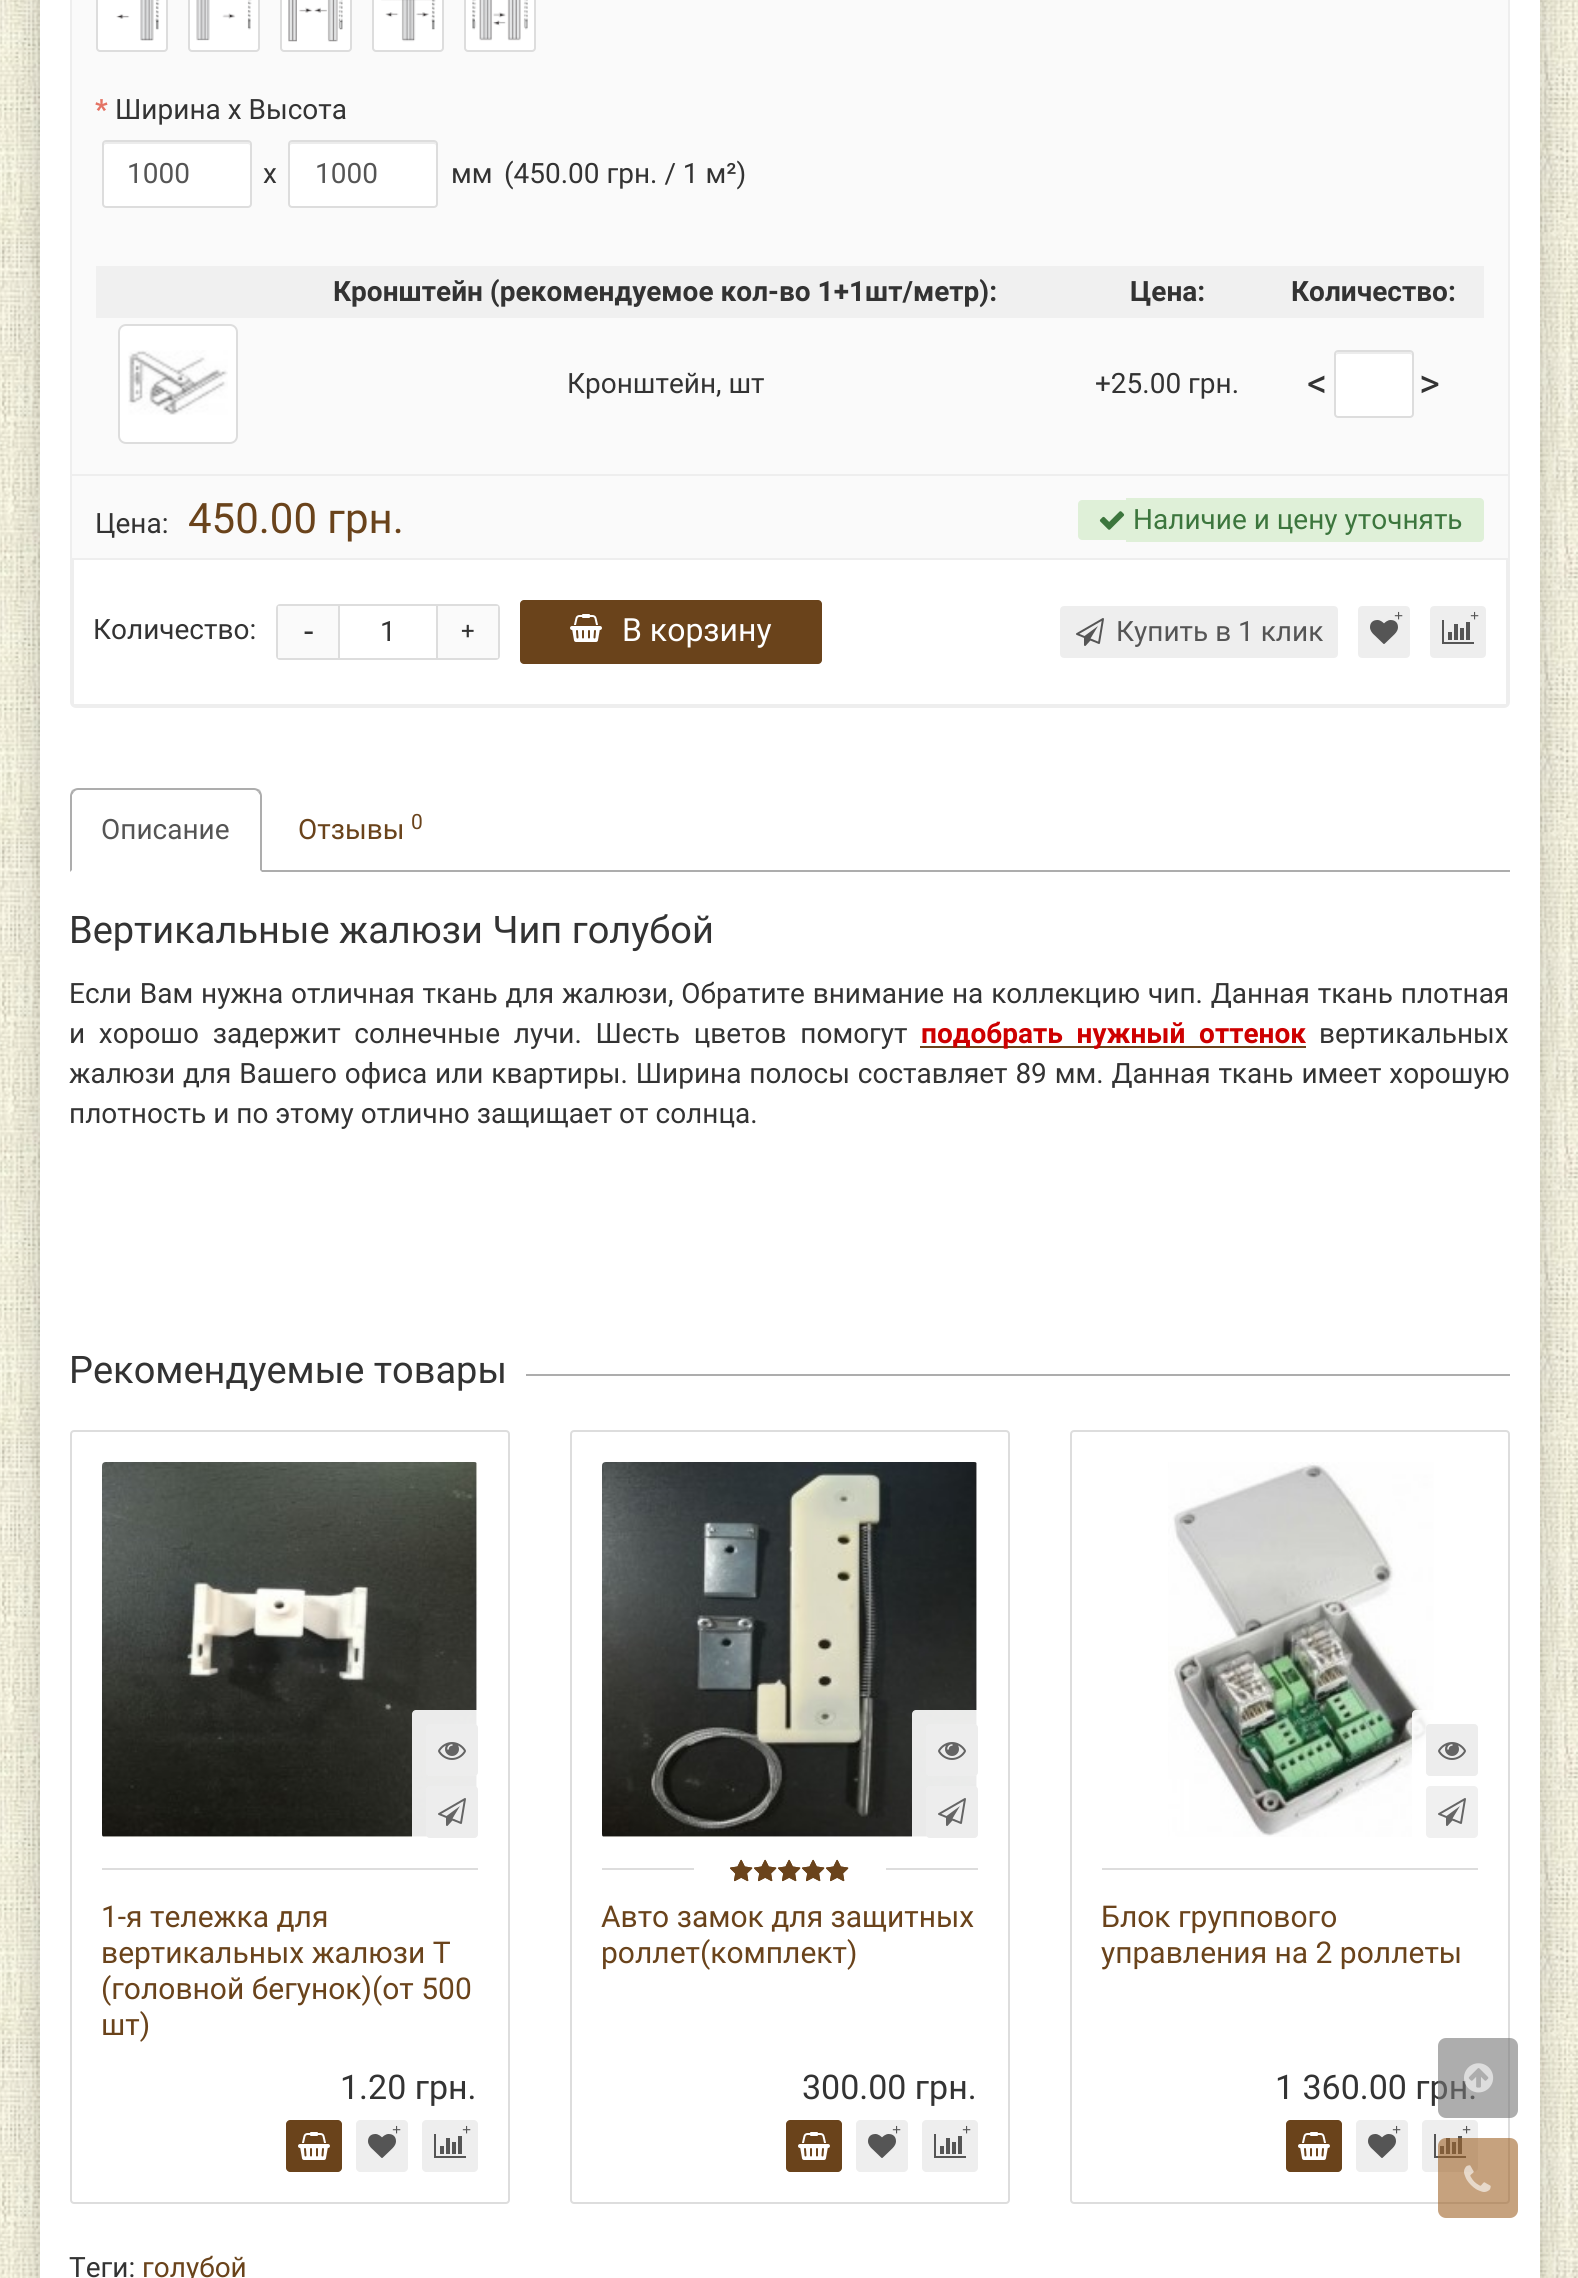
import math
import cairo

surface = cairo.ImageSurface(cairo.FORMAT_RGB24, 1578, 2278)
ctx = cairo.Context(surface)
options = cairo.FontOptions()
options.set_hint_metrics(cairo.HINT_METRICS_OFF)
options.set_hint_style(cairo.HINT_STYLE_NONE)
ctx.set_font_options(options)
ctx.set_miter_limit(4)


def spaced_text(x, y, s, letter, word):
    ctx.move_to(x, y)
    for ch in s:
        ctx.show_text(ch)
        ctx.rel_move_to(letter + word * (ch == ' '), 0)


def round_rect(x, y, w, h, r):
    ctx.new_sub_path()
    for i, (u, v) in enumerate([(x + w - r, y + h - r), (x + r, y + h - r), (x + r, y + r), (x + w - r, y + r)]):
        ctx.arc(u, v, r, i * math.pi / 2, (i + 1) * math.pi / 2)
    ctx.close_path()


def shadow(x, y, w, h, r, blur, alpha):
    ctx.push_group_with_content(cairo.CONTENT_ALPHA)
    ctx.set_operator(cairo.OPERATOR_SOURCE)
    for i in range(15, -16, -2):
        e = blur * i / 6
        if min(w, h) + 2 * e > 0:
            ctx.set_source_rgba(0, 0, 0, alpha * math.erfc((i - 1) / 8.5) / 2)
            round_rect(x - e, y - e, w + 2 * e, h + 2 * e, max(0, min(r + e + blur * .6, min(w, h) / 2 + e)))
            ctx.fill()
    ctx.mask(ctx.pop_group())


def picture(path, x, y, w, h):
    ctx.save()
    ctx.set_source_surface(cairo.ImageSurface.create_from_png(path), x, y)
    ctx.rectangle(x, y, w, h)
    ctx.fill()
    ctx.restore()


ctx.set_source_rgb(1, 1, 1)
ctx.paint()
picture("img1.png", 0, 0, 1578, 2278)
ctx.set_source_rgb(0, 0, 0)
shadow(40, -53, 1500, 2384, 8, 15, 0.2)
ctx.set_source_rgb(1, 1, 1)
ctx.rectangle(40, 0, 1500, 2278)
ctx.fill()
ctx.set_source_rgb(0.98, 0.98, 0.98)
round_rect(71, -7, 1438, 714, 5)
ctx.fill_preserve()
ctx.set_source_rgb(0.933, 0.933, 0.933)
ctx.stroke()
ctx.set_source_rgb(1, 1, 1)
round_rect(97, -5, 70, 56, 3)
ctx.fill_preserve()
ctx.set_source_rgb(0.867, 0.867, 0.867)
ctx.stroke()
picture("img2.png", 116, 0, 44, 41)
ctx.set_source_rgb(1, 1, 1)
round_rect(189, -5, 70, 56, 3)
ctx.fill_preserve()
ctx.set_source_rgb(0.867, 0.867, 0.867)
ctx.stroke()
picture("img3.png", 196, 0, 56, 41)
ctx.set_source_rgb(1, 1, 1)
round_rect(281, -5, 70, 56, 3)
ctx.fill_preserve()
ctx.set_source_rgb(0.867, 0.867, 0.867)
ctx.stroke()
picture("img4.png", 288, 0, 55, 42)
ctx.set_source_rgb(1, 1, 1)
round_rect(373, -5, 70, 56, 3)
ctx.fill_preserve()
ctx.set_source_rgb(0.867, 0.867, 0.867)
ctx.stroke()
picture("img5.png", 381, 0, 55, 42)
ctx.set_source_rgb(1, 1, 1)
round_rect(465, -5, 70, 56, 3)
ctx.fill_preserve()
ctx.set_source_rgb(0.867, 0.867, 0.867)
ctx.stroke()
picture("img6.png", 472, 0, 56, 41)
ctx.select_font_face("Roboto", cairo.FONT_SLANT_NORMAL, cairo.FONT_WEIGHT_BOLD)
ctx.set_font_size(28)
ctx.set_source_rgb(0.894, 0.451, 0.392)
ctx.move_to(95, 119)
ctx.show_text("*")
ctx.select_font_face("Roboto")
ctx.set_source_rgb(0.2, 0.2, 0.2)
ctx.move_to(115, 119)
ctx.show_text("Ширина x Высота")
ctx.set_source_rgb(1, 1, 1)
round_rect(102, 140, 150, 68, 4)
ctx.fill()
ctx.set_source_rgb(0.925, 0.925, 0.925)
ctx.new_path()
ctx.move_to(106, 144)
ctx.line_to(248, 144)
ctx.curve_to(249, 144, 250, 145, 250, 146)
ctx.curve_to(250, 145, 250, 143, 249, 142)
ctx.line_to(106, 142)
ctx.curve_to(104, 142, 104, 144, 104, 146)
ctx.curve_to(104, 145, 105, 144, 106, 144)
ctx.close_path()
ctx.fill()
round_rect(103, 141, 148, 66, 3)
ctx.set_source_rgb(0.867, 0.867, 0.867)
ctx.stroke()
ctx.set_source_rgb(0.333, 0.333, 0.333)
ctx.move_to(127, 183)
ctx.show_text("1000")
ctx.set_source_rgb(0.2, 0.2, 0.2)
ctx.move_to(263, 183)
ctx.show_text("x")
ctx.set_source_rgb(1, 1, 1)
round_rect(288, 140, 150, 68, 4)
ctx.fill()
ctx.set_source_rgb(0.925, 0.925, 0.925)
ctx.new_path()
ctx.move_to(292, 144)
ctx.line_to(434, 144)
ctx.curve_to(435, 144, 436, 145, 436, 146)
ctx.curve_to(436, 145, 436, 143, 435, 142)
ctx.line_to(292, 142)
ctx.curve_to(290, 142, 290, 144, 290, 146)
ctx.curve_to(290, 145, 291, 144, 292, 144)
ctx.close_path()
ctx.fill()
round_rect(289, 141, 148, 66, 3)
ctx.set_source_rgb(0.867, 0.867, 0.867)
ctx.stroke()
ctx.set_source_rgb(0.333, 0.333, 0.333)
ctx.move_to(315, 183)
ctx.show_text("1000")
ctx.set_source_rgb(0.2, 0.2, 0.2)
ctx.move_to(451, 183)
ctx.show_text("мм")
ctx.move_to(504, 183)
ctx.show_text("(450.00 грн. / 1 м²)")
ctx.set_source_rgb(0.941, 0.941, 0.941)
ctx.rectangle(96, 266, 1388, 52)
ctx.fill()
ctx.select_font_face("Roboto", cairo.FONT_SLANT_NORMAL, cairo.FONT_WEIGHT_BOLD)
ctx.set_source_rgb(0.2, 0.2, 0.2)
ctx.move_to(333, 301)
ctx.show_text("Кронштейн (рекомендуемое кол-во 1+1шт/метр):")
ctx.move_to(1130, 301)
ctx.show_text("Цена:")
ctx.move_to(1291, 301)
ctx.show_text("Количество:")
ctx.set_source_rgb(1, 1, 1)
round_rect(119, 325, 118, 118, 7)
ctx.fill_preserve()
ctx.set_source_rgb(0.867, 0.867, 0.867)
ctx.stroke()
picture("img7.png", 128, 350, 100, 65)
ctx.select_font_face("Roboto")
ctx.set_source_rgb(0.2, 0.2, 0.2)
ctx.move_to(567, 393)
ctx.show_text("Кронштейн, шт")
ctx.move_to(1095, 393)
ctx.show_text("+25.00 грн.")
ctx.set_font_size(40)
ctx.move_to(1307, 397)
ctx.show_text("<")
ctx.set_source_rgb(1, 1, 1)
round_rect(1334, 350, 80, 68, 4)
ctx.fill()
ctx.set_source_rgb(0.925, 0.925, 0.925)
ctx.new_path()
ctx.move_to(1338, 354)
ctx.line_to(1410, 354)
ctx.curve_to(1411, 354, 1412, 355, 1412, 356)
ctx.curve_to(1412, 349, 1406, 352, 1398, 352)
ctx.line_to(1350, 352)
ctx.curve_to(1342, 352, 1336, 349, 1336, 356)
ctx.curve_to(1336, 355, 1337, 354, 1338, 354)
ctx.close_path()
ctx.fill()
round_rect(1335, 351, 78, 66, 3)
ctx.set_source_rgb(0.867, 0.867, 0.867)
ctx.stroke()
ctx.set_source_rgb(0.2, 0.2, 0.2)
ctx.move_to(1419, 397)
ctx.show_text(">")
ctx.set_source_rgb(0.933, 0.933, 0.933)
ctx.rectangle(72, 474, 1436, 2)
ctx.fill()
ctx.set_font_size(28)
ctx.set_source_rgb(0.2, 0.2, 0.2)
ctx.move_to(95, 533)
ctx.show_text("Цена:")
ctx.set_font_size(42)
ctx.set_source_rgb(0.416, 0.263, 0.106)
ctx.move_to(188, 533)
ctx.show_text("450.00 грн.")
ctx.set_source_rgb(0.875, 0.941, 0.847)
ctx.new_path()
ctx.move_to(1082, 500)
ctx.line_to(1126, 500)
ctx.line_to(1126, 540)
ctx.line_to(1082, 540)
ctx.curve_to(1080, 540, 1078, 538, 1078, 536)
ctx.line_to(1078, 504)
ctx.curve_to(1078, 502, 1080, 500, 1082, 500)
ctx.close_path()
ctx.fill()
ctx.new_path()
ctx.move_to(1126, 498)
ctx.line_to(1480, 498)
ctx.curve_to(1482, 498, 1484, 500, 1484, 502)
ctx.line_to(1484, 538)
ctx.curve_to(1484, 540, 1482, 542, 1480, 542)
ctx.line_to(1126, 542)
ctx.close_path()
ctx.fill()
picture("img8.png", 1099, 511, 26, 19)
ctx.set_font_size(28)
ctx.set_source_rgb(0.235, 0.463, 0.239)
ctx.move_to(1133, 529)
ctx.show_text("Наличие и цену уточнять")
ctx.set_source_rgb(1, 1, 1)
ctx.rectangle(73, 559, 1434, 146)
ctx.fill_preserve()
ctx.set_source_rgb(0.933, 0.933, 0.933)
ctx.stroke()
ctx.set_source_rgb(0.2, 0.2, 0.2)
ctx.move_to(93, 639)
ctx.show_text("Количество:")
round_rect(277, 605, 222, 54, 3)
ctx.set_source_rgb(0.867, 0.867, 0.867)
ctx.stroke()
ctx.rectangle(436, 606, 2, 52)
ctx.fill()
ctx.rectangle(338, 606, 2, 52)
ctx.fill()
ctx.set_source_rgb(0.2, 0.2, 0.2)
ctx.move_to(380, 641)
ctx.show_text("1")
ctx.set_source_rgb(0.98, 0.98, 0.98)
ctx.rectangle(278, 606, 60, 52)
ctx.fill()
ctx.set_font_size(34)
ctx.set_source_rgb(0.2, 0.2, 0.2)
ctx.move_to(304, 643)
ctx.show_text("-")
ctx.set_source_rgb(0.98, 0.98, 0.98)
ctx.rectangle(438, 606, 60, 52)
ctx.fill()
ctx.set_font_size(24)
ctx.set_source_rgb(0.2, 0.2, 0.2)
ctx.move_to(461, 639)
ctx.show_text("+")
ctx.set_source_rgb(0.416, 0.263, 0.106)
round_rect(520, 600, 302, 64, 4)
ctx.fill()
picture("img9.png", 570, 614, 32, 28)
ctx.set_font_size(32)
ctx.set_source_rgb(1, 1, 1)
ctx.move_to(622, 641)
ctx.show_text("В корзину")
ctx.set_source_rgb(0.933, 0.933, 0.933)
round_rect(1360, 608, 48, 48, 2)
ctx.fill_preserve()
ctx.set_line_width(4)
ctx.stroke()
ctx.select_font_face("Liberation Serif", cairo.FONT_SLANT_NORMAL, cairo.FONT_WEIGHT_BOLD)
ctx.set_font_size(16)
ctx.set_source_rgb(0.333, 0.333, 0.333)
ctx.move_to(1394, 621)
ctx.show_text("+")
picture("img10.png", 1370, 620, 28, 24)
ctx.set_source_rgb(0.933, 0.933, 0.933)
round_rect(1432, 608, 52, 48, 2)
ctx.fill_preserve()
ctx.stroke()
ctx.set_source_rgb(0.333, 0.333, 0.333)
ctx.move_to(1470, 621)
ctx.show_text("+")
picture("img11.png", 1442, 620, 32, 24)
ctx.set_source_rgb(0.933, 0.933, 0.933)
round_rect(1062, 608, 274, 48, 2)
ctx.fill_preserve()
ctx.stroke()
picture("img12.png", 1076, 618, 28, 28)
ctx.select_font_face("Roboto")
ctx.set_font_size(28)
ctx.set_source_rgb(0.333, 0.333, 0.333)
ctx.move_to(1116, 641)
ctx.show_text("Купить в 1 клик")
ctx.set_source_rgb(0.678, 0.678, 0.678)
ctx.rectangle(262, 870, 1248, 2)
ctx.fill()
ctx.new_path()
ctx.move_to(78, 788)
ctx.curve_to(76, 788, 74, 789, 72, 790)
ctx.line_to(74, 792)
ctx.curve_to(75, 791, 76, 790, 78, 790)
ctx.line_to(254, 790)
ctx.curve_to(256, 790, 257, 791, 258, 792)
ctx.line_to(260, 790)
ctx.curve_to(258, 789, 256, 788, 254, 788)
ctx.close_path()
ctx.fill()
ctx.new_path()
ctx.move_to(262, 872)
ctx.line_to(262, 796)
ctx.curve_to(262, 794, 261, 792, 260, 790)
ctx.line_to(258, 792)
ctx.line_to(260, 795)
ctx.line_to(260, 870)
ctx.close_path()
ctx.fill()
ctx.new_path()
ctx.move_to(70, 872)
ctx.line_to(72, 870)
ctx.line_to(72, 795)
ctx.line_to(74, 792)
ctx.line_to(72, 790)
ctx.curve_to(71, 792, 70, 794, 70, 796)
ctx.close_path()
ctx.fill()
ctx.set_source_rgb(0.333, 0.333, 0.333)
ctx.move_to(101, 839)
ctx.show_text("Описание")
ctx.set_source_rgb(0.416, 0.263, 0.106)
ctx.move_to(298, 839)
ctx.show_text("Отзывы")
ctx.set_font_size(21)
ctx.move_to(411, 829)
ctx.show_text("0")
ctx.set_font_size(38)
ctx.set_source_rgb(0.2, 0.2, 0.2)
ctx.move_to(69, 943)
ctx.show_text("Вертикальные жалюзи Чип голубой")
ctx.set_font_size(28)
spaced_text(69, 1003, "Если Вам нужна отличная ткань для жалюзи, Обратите внимание на коллекцию чип. Данная ткань плотная", 0, 0.9)
spaced_text(69, 1043, "и хорошо задержит солнечные лучи. Шесть цветов помогут", 0, 6.75)
ctx.set_source_rgb(0.416, 0.263, 0.106)
ctx.rectangle(920, 1046, 386, 2)
ctx.fill()
ctx.select_font_face("Roboto", cairo.FONT_SLANT_NORMAL, cairo.FONT_WEIGHT_BOLD)
ctx.set_source_rgb(0.808, 0, 0)
spaced_text(921, 1043, "подобрать нужный оттенок", 0, 6.75)
ctx.select_font_face("Roboto")
ctx.set_source_rgb(0.2, 0.2, 0.2)
ctx.move_to(1319, 1043)
ctx.show_text("вертикальных")
spaced_text(69, 1083, "жалюзи для Вашего офиса или квартиры. Ширина полосы составляет 89 мм. Данная ткань имеет хорошую", 0, 0.9)
ctx.move_to(69, 1123)
ctx.show_text("плотность и по этому отлично защищает от солнца.")
ctx.set_source_rgb(0.678, 0.678, 0.678)
ctx.rectangle(526, 1374, 984, 2)
ctx.fill()
ctx.set_font_size(38)
ctx.set_source_rgb(0.2, 0.2, 0.2)
ctx.move_to(69, 1383)
ctx.show_text("Рекомендуемые товары")
round_rect(71, 1431, 438, 772, 3)
ctx.set_source_rgb(0.867, 0.867, 0.867)
ctx.set_line_width(2)
ctx.stroke()
picture("img13.png", 102, 1462, 376, 376)
ctx.set_source_rgba(1, 1, 1, 0.9)
round_rect(412, 1710, 80, 142, 4)
ctx.fill()
ctx.set_source_rgba(0.933, 0.933, 0.933, 0.9)
round_rect(426, 1724, 52, 52, 4)
ctx.fill()
ctx.new_path()
ctx.move_to(430, 1724)
ctx.line_to(474, 1724)
ctx.curve_to(476, 1724, 478, 1726, 478, 1728)
ctx.line_to(478, 1772)
ctx.curve_to(478, 1774, 476, 1776, 474, 1776)
ctx.line_to(430, 1776)
ctx.curve_to(428, 1776, 426, 1774, 426, 1772)
ctx.line_to(426, 1728)
ctx.curve_to(426, 1726, 428, 1724, 430, 1724)
ctx.close_path()
ctx.fill()
picture("img14.png", 438, 1742, 28, 18)
round_rect(426, 1786, 52, 52, 4)
ctx.fill()
ctx.new_path()
ctx.move_to(430, 1786)
ctx.line_to(474, 1786)
ctx.curve_to(476, 1786, 478, 1788, 478, 1790)
ctx.line_to(478, 1834)
ctx.curve_to(478, 1836, 476, 1838, 474, 1838)
ctx.line_to(430, 1838)
ctx.curve_to(428, 1838, 426, 1836, 426, 1834)
ctx.line_to(426, 1790)
ctx.curve_to(426, 1788, 428, 1786, 430, 1786)
ctx.close_path()
ctx.fill()
picture("img15.png", 438, 1798, 28, 28)
ctx.set_source_rgb(0.867, 0.867, 0.867)
ctx.rectangle(102, 1868, 376, 2)
ctx.fill()
ctx.set_font_size(30)
ctx.set_source_rgb(0.416, 0.263, 0.106)
ctx.move_to(101, 1927)
ctx.show_text("1-я тележка для")
ctx.move_to(101, 1963)
ctx.show_text("вертикальных жалюзи Т")
ctx.move_to(101, 1999)
ctx.show_text("(головной бегунок)(от 500")
ctx.move_to(101, 2035)
ctx.show_text("шт)")
ctx.set_font_size(34)
ctx.set_source_rgb(0.2, 0.2, 0.2)
ctx.move_to(340, 2099)
ctx.show_text("1.20 грн.")
ctx.set_source_rgb(0.416, 0.263, 0.106)
ctx.new_path()
ctx.move_to(290, 2120)
ctx.line_to(338, 2120)
ctx.curve_to(340, 2120, 342, 2122, 342, 2124)
ctx.line_to(342, 2168)
ctx.curve_to(342, 2170, 340, 2172, 338, 2172)
ctx.line_to(290, 2172)
ctx.curve_to(288, 2172, 286, 2170, 286, 2168)
ctx.line_to(286, 2124)
ctx.curve_to(286, 2122, 288, 2120, 290, 2120)
ctx.close_path()
ctx.fill()
picture("img9.png", 298, 2132, 32, 28)
ctx.set_source_rgb(0.933, 0.933, 0.933)
ctx.new_path()
ctx.move_to(360, 2120)
ctx.line_to(404, 2120)
ctx.curve_to(406, 2120, 408, 2122, 408, 2124)
ctx.line_to(408, 2168)
ctx.curve_to(408, 2170, 406, 2172, 404, 2172)
ctx.line_to(360, 2172)
ctx.curve_to(358, 2172, 356, 2170, 356, 2168)
ctx.line_to(356, 2124)
ctx.curve_to(356, 2122, 358, 2120, 360, 2120)
ctx.close_path()
ctx.fill()
ctx.select_font_face("Liberation Serif", cairo.FONT_SLANT_NORMAL, cairo.FONT_WEIGHT_BOLD)
ctx.set_font_size(16)
ctx.set_source_rgb(0.333, 0.333, 0.333)
ctx.move_to(392, 2135)
ctx.show_text("+")
picture("img10.png", 368, 2134, 28, 24)
ctx.set_source_rgb(0.933, 0.933, 0.933)
ctx.new_path()
ctx.move_to(426, 2120)
ctx.line_to(474, 2120)
ctx.curve_to(476, 2120, 478, 2122, 478, 2124)
ctx.line_to(478, 2168)
ctx.curve_to(478, 2170, 476, 2172, 474, 2172)
ctx.line_to(426, 2172)
ctx.curve_to(424, 2172, 422, 2170, 422, 2168)
ctx.line_to(422, 2124)
ctx.curve_to(422, 2122, 424, 2120, 426, 2120)
ctx.close_path()
ctx.fill()
ctx.set_source_rgb(0.333, 0.333, 0.333)
ctx.move_to(462, 2135)
ctx.show_text("+")
picture("img11.png", 434, 2134, 32, 24)
round_rect(571, 1431, 438, 772, 3)
ctx.set_source_rgb(0.867, 0.867, 0.867)
ctx.stroke()
picture("img16.png", 602, 1462, 375, 376)
ctx.set_source_rgba(1, 1, 1, 0.9)
round_rect(912, 1710, 80, 142, 4)
ctx.fill()
ctx.set_source_rgba(0.933, 0.933, 0.933, 0.9)
round_rect(926, 1724, 52, 52, 4)
ctx.fill()
ctx.new_path()
ctx.move_to(930, 1724)
ctx.line_to(974, 1724)
ctx.curve_to(976, 1724, 978, 1726, 978, 1728)
ctx.line_to(978, 1772)
ctx.curve_to(978, 1774, 976, 1776, 974, 1776)
ctx.line_to(930, 1776)
ctx.curve_to(928, 1776, 926, 1774, 926, 1772)
ctx.line_to(926, 1728)
ctx.curve_to(926, 1726, 928, 1724, 930, 1724)
ctx.close_path()
ctx.fill()
picture("img14.png", 938, 1742, 28, 18)
round_rect(926, 1786, 52, 52, 4)
ctx.fill()
ctx.new_path()
ctx.move_to(930, 1786)
ctx.line_to(974, 1786)
ctx.curve_to(976, 1786, 978, 1788, 978, 1790)
ctx.line_to(978, 1834)
ctx.curve_to(978, 1836, 976, 1838, 974, 1838)
ctx.line_to(930, 1838)
ctx.curve_to(928, 1838, 926, 1836, 926, 1834)
ctx.line_to(926, 1790)
ctx.curve_to(926, 1788, 928, 1786, 930, 1786)
ctx.close_path()
ctx.fill()
picture("img15.png", 938, 1798, 28, 28)
ctx.set_source_rgb(0.867, 0.867, 0.867)
ctx.rectangle(602, 1868, 376, 2)
ctx.fill()
ctx.set_source_rgb(1, 1, 1)
ctx.rectangle(694, 1868, 192, 2)
ctx.fill()
picture("img17.png", 730, 1859, 23, 23)
picture("img18.png", 730, 1859, 23, 23)
picture("img17.png", 754, 1859, 23, 23)
picture("img18.png", 754, 1859, 23, 23)
picture("img17.png", 778, 1859, 23, 23)
picture("img18.png", 778, 1859, 23, 23)
picture("img17.png", 802, 1859, 23, 23)
picture("img18.png", 802, 1859, 23, 23)
picture("img17.png", 826, 1859, 23, 23)
picture("img18.png", 826, 1859, 23, 23)
ctx.select_font_face("Roboto")
ctx.set_font_size(30)
ctx.set_source_rgb(0.416, 0.263, 0.106)
ctx.move_to(601, 1927)
ctx.show_text("Авто замок для защитных")
ctx.move_to(601, 1963)
ctx.show_text("роллет(комплект)")
ctx.set_font_size(34)
ctx.set_source_rgb(0.2, 0.2, 0.2)
ctx.move_to(802, 2099)
ctx.show_text("300.00 грн.")
ctx.set_source_rgb(0.416, 0.263, 0.106)
ctx.new_path()
ctx.move_to(790, 2120)
ctx.line_to(838, 2120)
ctx.curve_to(840, 2120, 842, 2122, 842, 2124)
ctx.line_to(842, 2168)
ctx.curve_to(842, 2170, 840, 2172, 838, 2172)
ctx.line_to(790, 2172)
ctx.curve_to(788, 2172, 786, 2170, 786, 2168)
ctx.line_to(786, 2124)
ctx.curve_to(786, 2122, 788, 2120, 790, 2120)
ctx.close_path()
ctx.fill()
picture("img9.png", 798, 2132, 32, 28)
ctx.set_source_rgb(0.933, 0.933, 0.933)
ctx.new_path()
ctx.move_to(860, 2120)
ctx.line_to(904, 2120)
ctx.curve_to(906, 2120, 908, 2122, 908, 2124)
ctx.line_to(908, 2168)
ctx.curve_to(908, 2170, 906, 2172, 904, 2172)
ctx.line_to(860, 2172)
ctx.curve_to(858, 2172, 856, 2170, 856, 2168)
ctx.line_to(856, 2124)
ctx.curve_to(856, 2122, 858, 2120, 860, 2120)
ctx.close_path()
ctx.fill()
ctx.select_font_face("Liberation Serif", cairo.FONT_SLANT_NORMAL, cairo.FONT_WEIGHT_BOLD)
ctx.set_font_size(16)
ctx.set_source_rgb(0.333, 0.333, 0.333)
ctx.move_to(892, 2135)
ctx.show_text("+")
picture("img10.png", 868, 2134, 28, 24)
ctx.set_source_rgb(0.933, 0.933, 0.933)
ctx.new_path()
ctx.move_to(926, 2120)
ctx.line_to(974, 2120)
ctx.curve_to(976, 2120, 978, 2122, 978, 2124)
ctx.line_to(978, 2168)
ctx.curve_to(978, 2170, 976, 2172, 974, 2172)
ctx.line_to(926, 2172)
ctx.curve_to(924, 2172, 922, 2170, 922, 2168)
ctx.line_to(922, 2124)
ctx.curve_to(922, 2122, 924, 2120, 926, 2120)
ctx.close_path()
ctx.fill()
ctx.set_source_rgb(0.333, 0.333, 0.333)
ctx.move_to(962, 2135)
ctx.show_text("+")
picture("img11.png", 934, 2134, 32, 24)
round_rect(1071, 1431, 438, 772, 3)
ctx.set_source_rgb(0.867, 0.867, 0.867)
ctx.stroke()
picture("img19.png", 1168, 1462, 266, 375)
ctx.set_source_rgba(1, 1, 1, 0.9)
round_rect(1412, 1710, 80, 142, 4)
ctx.fill()
ctx.set_source_rgba(0.933, 0.933, 0.933, 0.9)
round_rect(1426, 1724, 52, 52, 4)
ctx.fill()
ctx.new_path()
ctx.move_to(1430, 1724)
ctx.line_to(1474, 1724)
ctx.curve_to(1476, 1724, 1478, 1726, 1478, 1728)
ctx.line_to(1478, 1772)
ctx.curve_to(1478, 1774, 1476, 1776, 1474, 1776)
ctx.line_to(1430, 1776)
ctx.curve_to(1428, 1776, 1426, 1774, 1426, 1772)
ctx.line_to(1426, 1728)
ctx.curve_to(1426, 1726, 1428, 1724, 1430, 1724)
ctx.close_path()
ctx.fill()
picture("img20.png", 1438, 1742, 28, 18)
ctx.set_source_rgb(0.941, 0.941, 0.941)
ctx.new_path()
ctx.move_to(1430, 1786)
ctx.line_to(1474, 1786)
ctx.curve_to(1476, 1786, 1478, 1788, 1478, 1790)
ctx.line_to(1478, 1834)
ctx.curve_to(1478, 1836, 1476, 1838, 1474, 1838)
ctx.line_to(1430, 1838)
ctx.curve_to(1428, 1838, 1426, 1836, 1426, 1834)
ctx.line_to(1426, 1790)
ctx.curve_to(1426, 1788, 1428, 1786, 1430, 1786)
ctx.close_path()
ctx.fill()
picture("img21.png", 1438, 1798, 28, 28)
ctx.set_source_rgb(0.867, 0.867, 0.867)
ctx.rectangle(1102, 1868, 376, 2)
ctx.fill()
ctx.select_font_face("Roboto")
ctx.set_font_size(30)
ctx.set_source_rgb(0.416, 0.263, 0.106)
ctx.move_to(1101, 1927)
ctx.show_text("Блок группового")
ctx.move_to(1101, 1963)
ctx.show_text("управления на 2 роллеты")
ctx.set_font_size(34)
ctx.set_source_rgb(0.2, 0.2, 0.2)
ctx.move_to(1275, 2099)
ctx.show_text("1 360.00 грн.")
ctx.set_source_rgb(0.416, 0.263, 0.106)
ctx.new_path()
ctx.move_to(1290, 2120)
ctx.line_to(1338, 2120)
ctx.curve_to(1340, 2120, 1342, 2122, 1342, 2124)
ctx.line_to(1342, 2168)
ctx.curve_to(1342, 2170, 1340, 2172, 1338, 2172)
ctx.line_to(1290, 2172)
ctx.curve_to(1288, 2172, 1286, 2170, 1286, 2168)
ctx.line_to(1286, 2124)
ctx.curve_to(1286, 2122, 1288, 2120, 1290, 2120)
ctx.close_path()
ctx.fill()
picture("img9.png", 1298, 2132, 32, 28)
ctx.set_source_rgb(0.933, 0.933, 0.933)
ctx.new_path()
ctx.move_to(1360, 2120)
ctx.line_to(1404, 2120)
ctx.curve_to(1406, 2120, 1408, 2122, 1408, 2124)
ctx.line_to(1408, 2168)
ctx.curve_to(1408, 2170, 1406, 2172, 1404, 2172)
ctx.line_to(1360, 2172)
ctx.curve_to(1358, 2172, 1356, 2170, 1356, 2168)
ctx.line_to(1356, 2124)
ctx.curve_to(1356, 2122, 1358, 2120, 1360, 2120)
ctx.close_path()
ctx.fill()
ctx.select_font_face("Liberation Serif", cairo.FONT_SLANT_NORMAL, cairo.FONT_WEIGHT_BOLD)
ctx.set_font_size(16)
ctx.set_source_rgb(0.333, 0.333, 0.333)
ctx.move_to(1392, 2135)
ctx.show_text("+")
picture("img10.png", 1368, 2134, 28, 24)
ctx.set_source_rgb(0.933, 0.933, 0.933)
ctx.new_path()
ctx.move_to(1426, 2120)
ctx.line_to(1474, 2120)
ctx.curve_to(1476, 2120, 1478, 2122, 1478, 2124)
ctx.line_to(1478, 2168)
ctx.curve_to(1478, 2170, 1476, 2172, 1474, 2172)
ctx.line_to(1426, 2172)
ctx.curve_to(1424, 2172, 1422, 2170, 1422, 2168)
ctx.line_to(1422, 2124)
ctx.curve_to(1422, 2122, 1424, 2120, 1426, 2120)
ctx.close_path()
ctx.fill()
ctx.set_source_rgb(0.333, 0.333, 0.333)
ctx.move_to(1462, 2135)
ctx.show_text("+")
picture("img11.png", 1434, 2134, 32, 24)
ctx.select_font_face("Roboto")
ctx.set_font_size(28)
ctx.set_source_rgb(0.2, 0.2, 0.2)
ctx.move_to(69, 2277)
ctx.show_text("Теги:")
ctx.set_source_rgb(0.416, 0.263, 0.106)
ctx.move_to(142, 2277)
ctx.show_text("голубой")
ctx.set_source_rgba(0.467, 0.467, 0.467, 0.6)
round_rect(1438, 2038, 80, 80, 8)
ctx.fill()
picture("img22.png", 1464, 2063, 30, 30)
ctx.set_source_rgba(0.627, 0.396, 0.161, 0.6)
round_rect(1438, 2138, 80, 80, 8)
ctx.fill()
picture("img23.png", 1464, 2165, 27, 27)
surface.write_to_png("page.png")
